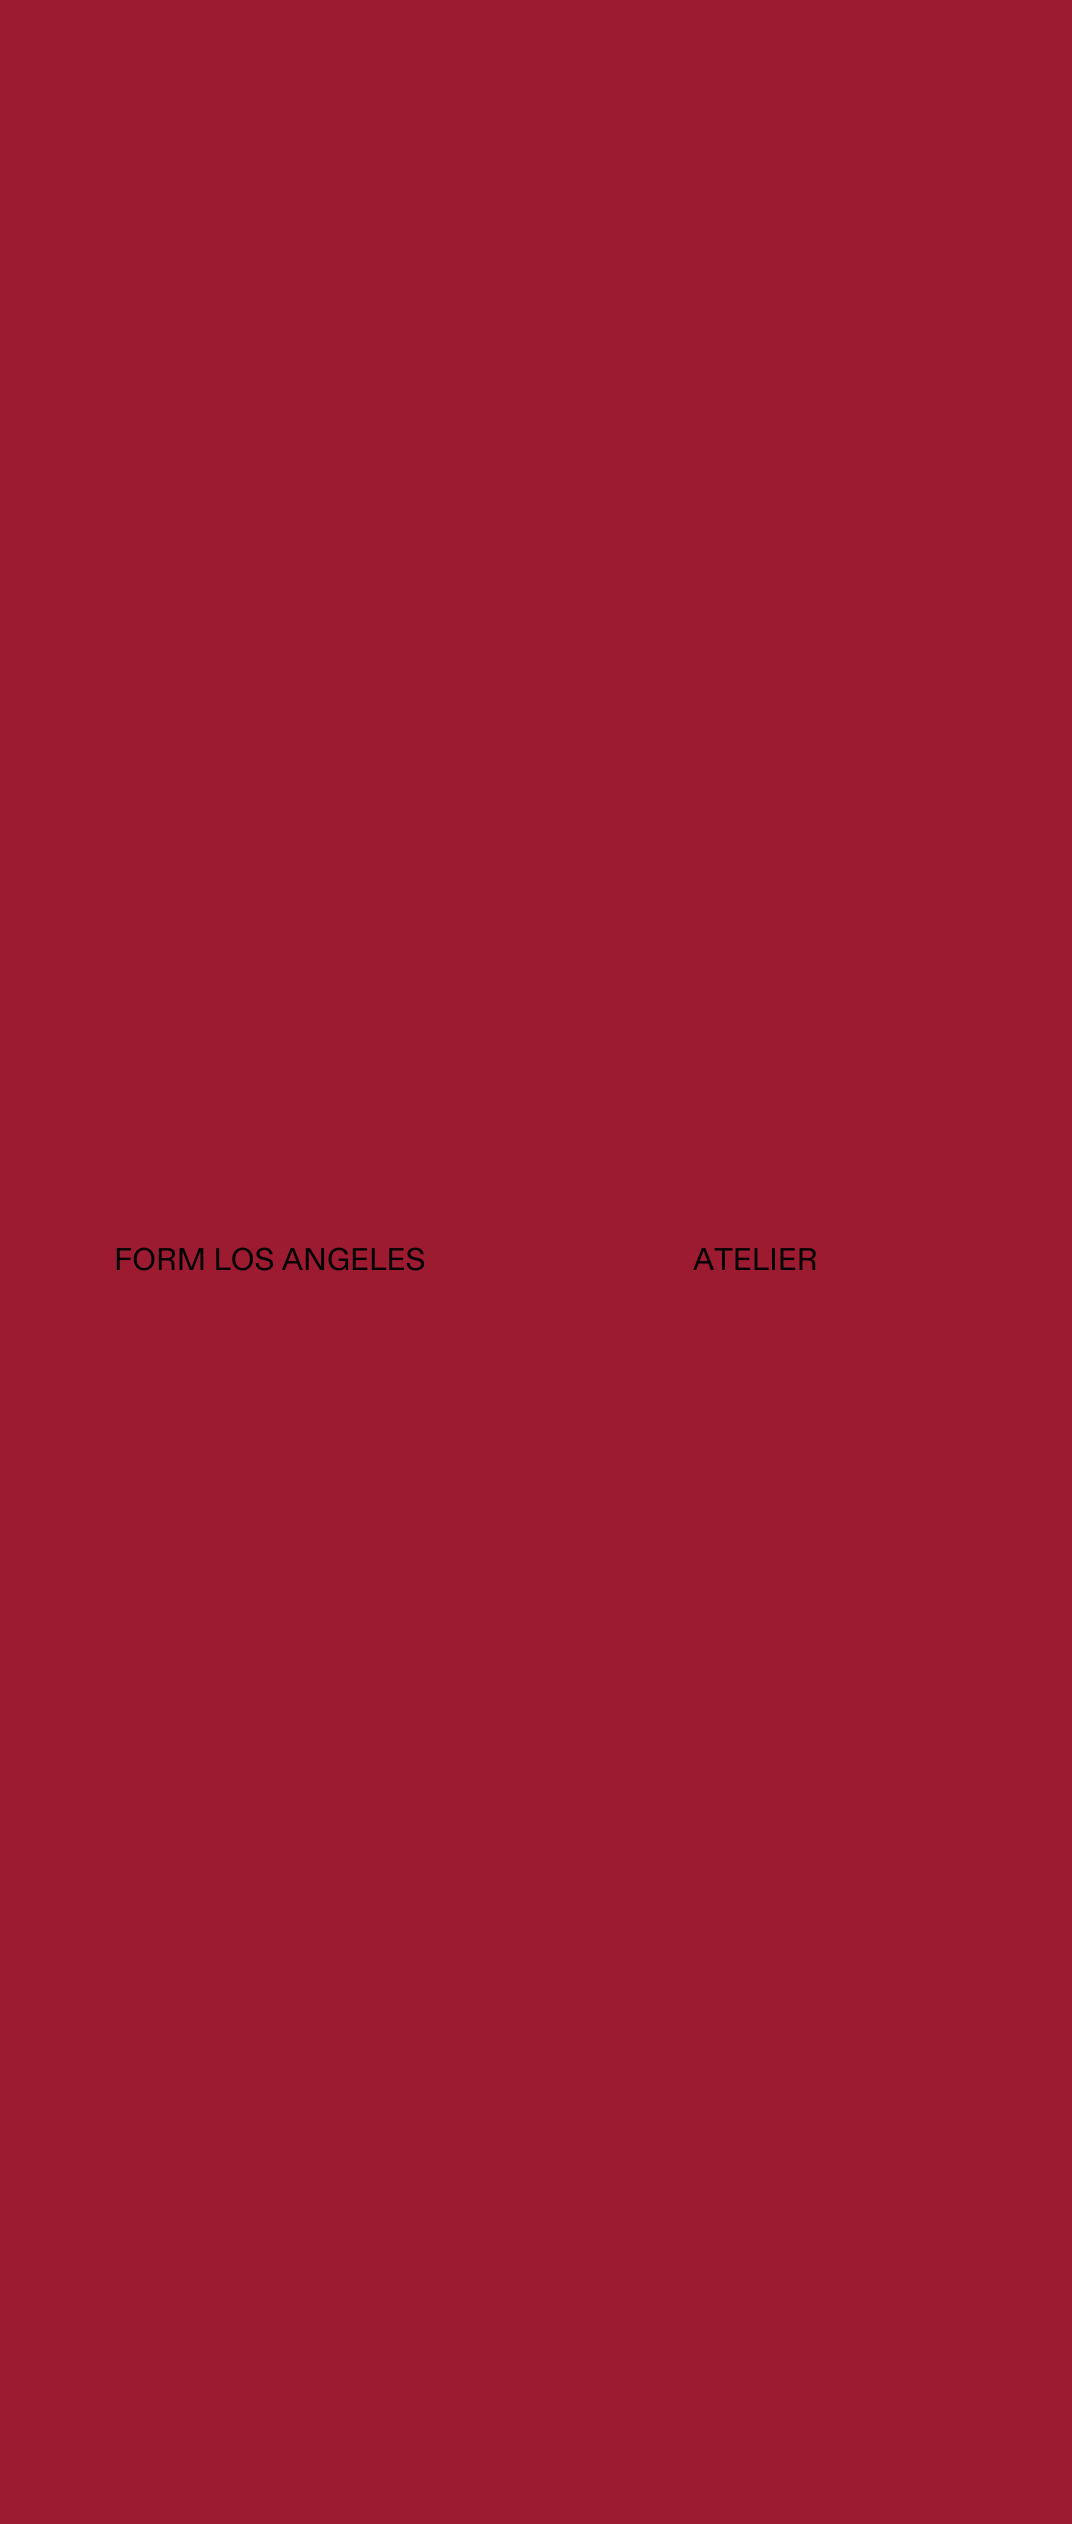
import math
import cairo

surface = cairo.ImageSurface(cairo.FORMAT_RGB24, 1072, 2524)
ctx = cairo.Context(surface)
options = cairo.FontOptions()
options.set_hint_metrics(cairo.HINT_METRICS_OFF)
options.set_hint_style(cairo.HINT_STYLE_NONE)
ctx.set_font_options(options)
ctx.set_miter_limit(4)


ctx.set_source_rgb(0.612, 0.106, 0.188)
ctx.paint()
ctx.select_font_face("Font")
ctx.set_font_size(31.25)
ctx.set_source_rgb(0, 0, 0)
ctx.move_to(114, 1270)
ctx.show_text("FORM LOS ANGELES")
ctx.move_to(693, 1270)
ctx.show_text("ATELIER")
surface.write_to_png("page.png")
